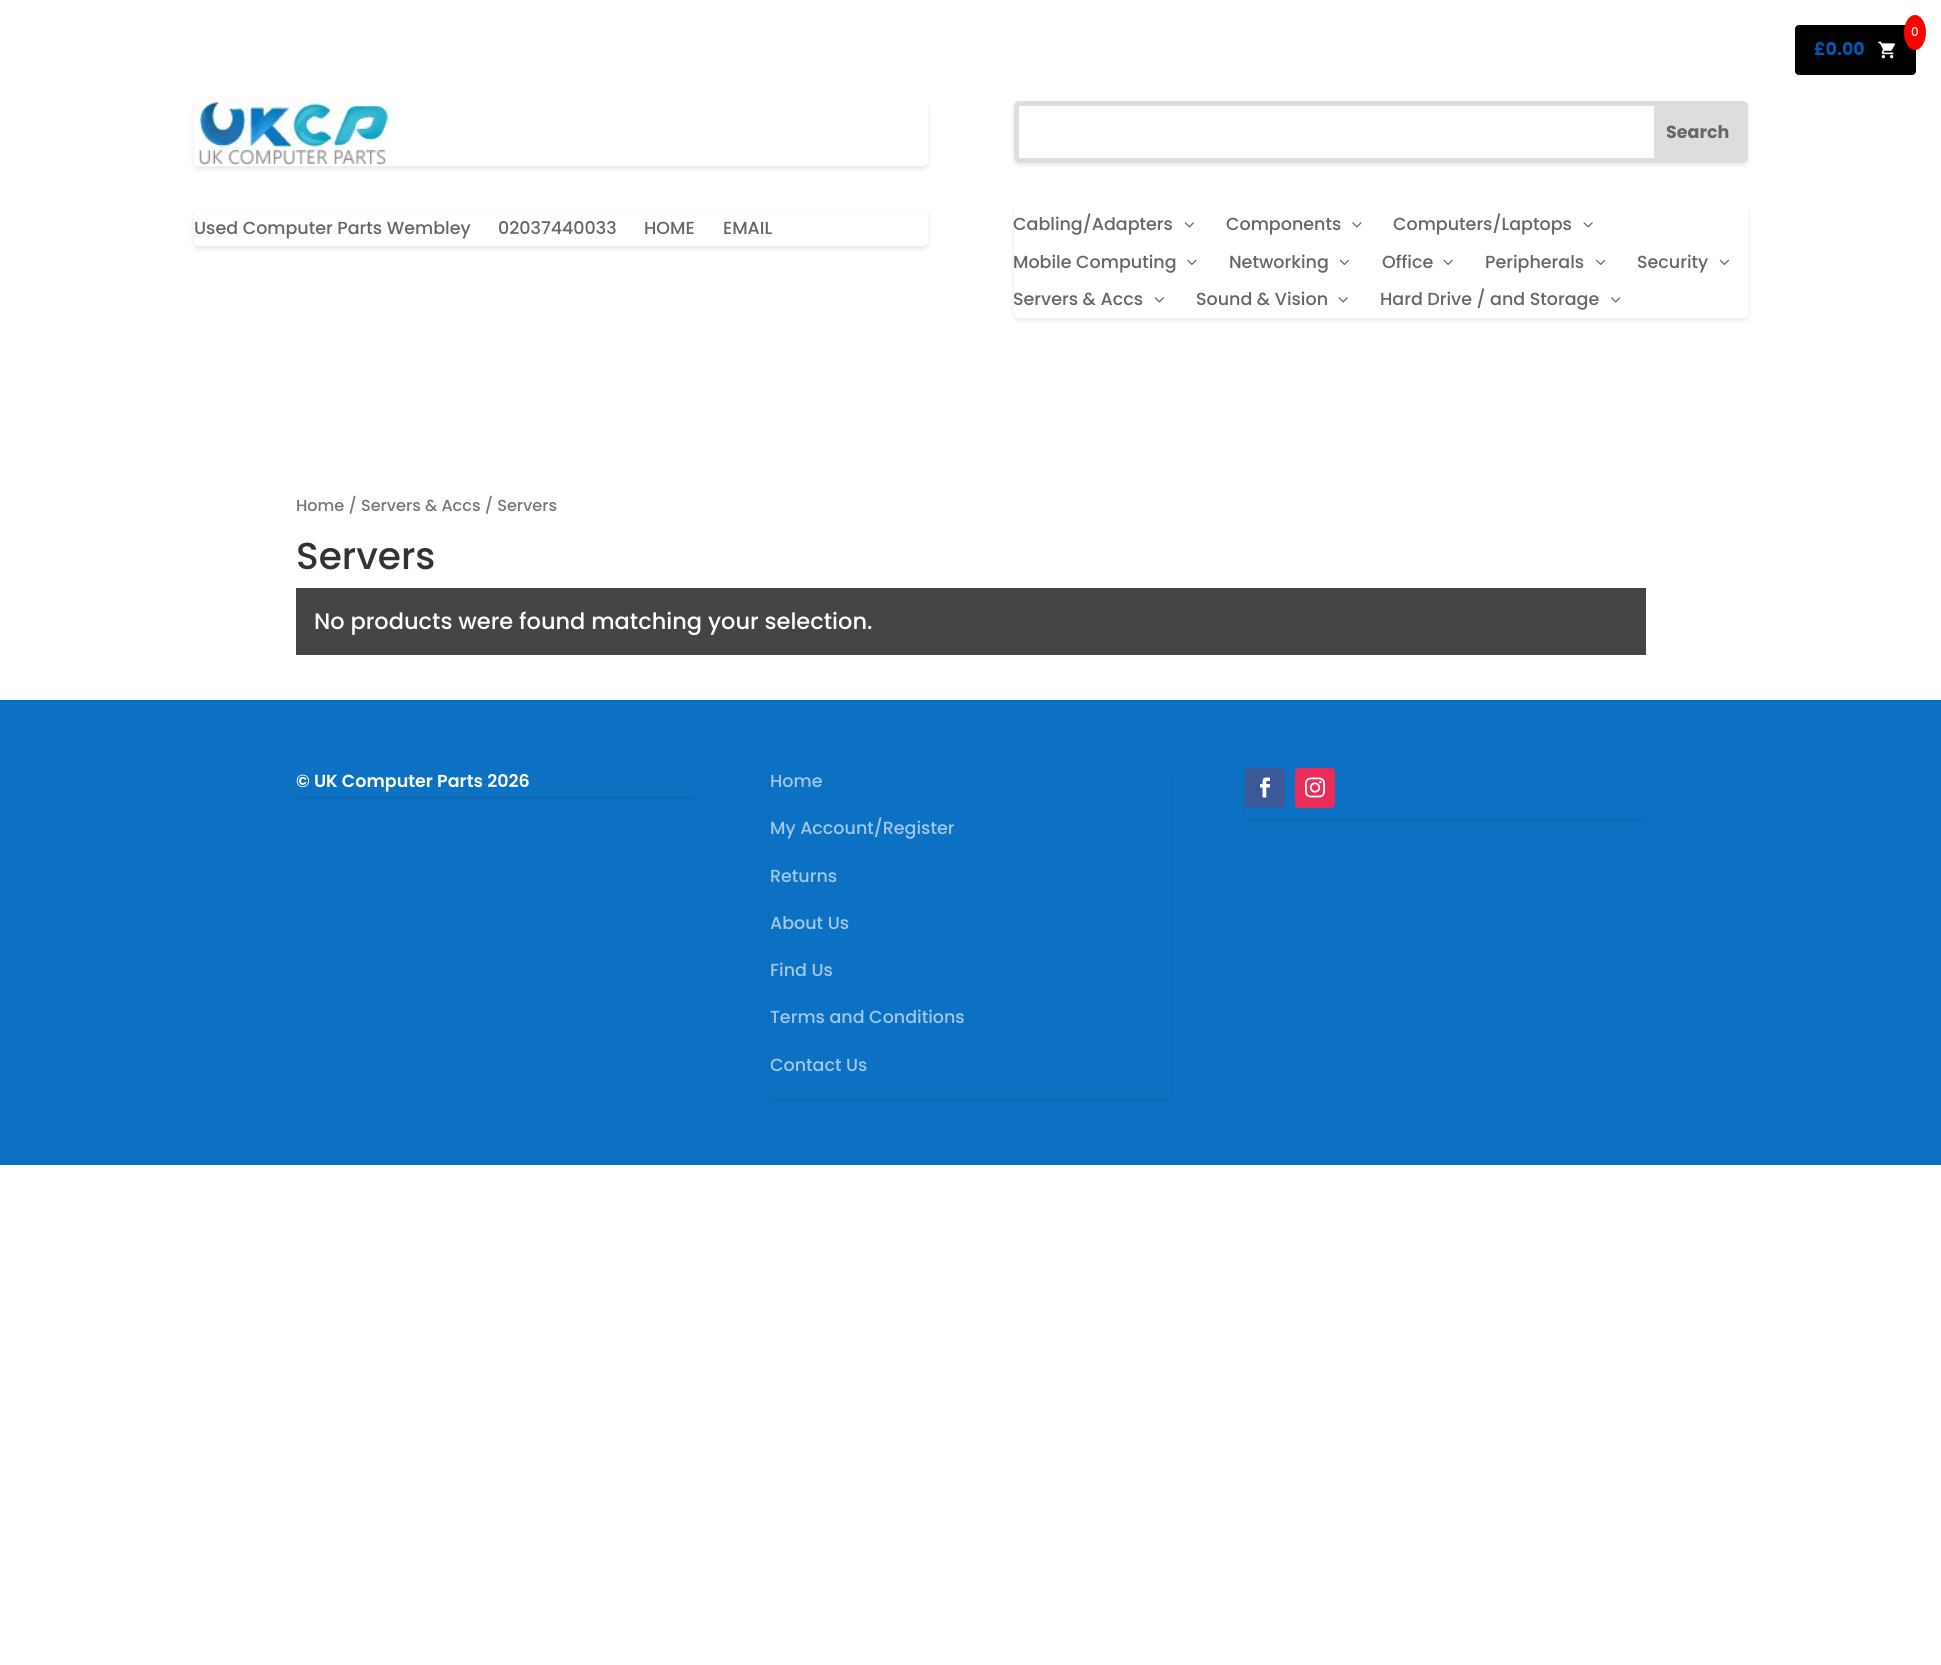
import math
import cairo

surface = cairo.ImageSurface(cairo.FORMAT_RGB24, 1941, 1665)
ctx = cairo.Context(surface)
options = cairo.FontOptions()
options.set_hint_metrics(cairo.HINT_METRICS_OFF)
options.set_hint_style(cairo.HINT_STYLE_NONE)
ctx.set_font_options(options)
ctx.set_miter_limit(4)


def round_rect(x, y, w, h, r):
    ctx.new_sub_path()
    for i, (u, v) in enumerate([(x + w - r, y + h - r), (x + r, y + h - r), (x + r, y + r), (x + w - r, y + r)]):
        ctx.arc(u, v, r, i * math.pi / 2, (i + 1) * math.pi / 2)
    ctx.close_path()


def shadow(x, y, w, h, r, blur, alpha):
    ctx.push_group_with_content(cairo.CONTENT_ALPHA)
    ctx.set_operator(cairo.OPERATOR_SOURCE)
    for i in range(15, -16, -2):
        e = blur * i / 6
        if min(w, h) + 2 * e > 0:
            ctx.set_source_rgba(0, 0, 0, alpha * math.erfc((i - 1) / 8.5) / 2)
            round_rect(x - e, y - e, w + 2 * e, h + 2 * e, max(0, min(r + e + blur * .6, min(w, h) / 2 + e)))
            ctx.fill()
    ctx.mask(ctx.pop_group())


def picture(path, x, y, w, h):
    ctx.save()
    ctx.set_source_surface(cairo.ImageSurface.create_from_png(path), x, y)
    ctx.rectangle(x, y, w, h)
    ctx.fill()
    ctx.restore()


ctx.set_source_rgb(1, 1, 1)
ctx.paint()
ctx.set_source_rgb(0, 0, 0)
round_rect(1795, 25, 121, 50, 4)
ctx.fill()
ctx.set_source_rgb(1, 0, 0)
ctx.new_path()
ctx.move_to(1915, 15)
ctx.curve_to(1921, 15, 1926, 23, 1926, 32.5)
ctx.curve_to(1926, 42, 1921, 50, 1915, 50)
ctx.curve_to(1909, 50, 1904, 42, 1904, 32.5)
ctx.curve_to(1904, 23, 1909, 15, 1915, 15)
ctx.close_path()
ctx.fill()
ctx.select_font_face("Poppins Medium")
ctx.set_font_size(12)
ctx.set_source_rgb(1, 1, 1)
ctx.move_to(1911, 36)
ctx.show_text("0")
ctx.select_font_face("Poppins", cairo.FONT_SLANT_NORMAL, cairo.FONT_WEIGHT_BOLD)
ctx.set_font_size(17.5)
ctx.set_source_rgb(0, 0.337, 0.702)
ctx.move_to(1814, 55)
ctx.show_text("£0.00")
picture("img1.png", 1878, 41, 17, 18)
ctx.save()
ctx.set_fill_rule(cairo.FILL_RULE_EVEN_ODD)
ctx.new_path()
ctx.move_to(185, 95)
ctx.line_to(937, 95)
ctx.line_to(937, 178)
ctx.line_to(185, 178)
ctx.close_path()
ctx.move_to(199, 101)
ctx.line_to(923, 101)
ctx.curve_to(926, 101, 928, 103, 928, 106)
ctx.line_to(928, 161)
ctx.curve_to(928, 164, 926, 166, 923, 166)
ctx.line_to(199, 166)
ctx.curve_to(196, 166, 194, 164, 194, 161)
ctx.line_to(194, 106)
ctx.curve_to(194, 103, 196, 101, 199, 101)
ctx.close_path()
ctx.clip()
ctx.set_source_rgb(0, 0, 0)
shadow(194, 104, 734, 65, 5, 2.5, 0.1)
ctx.restore()
picture("img2.png", 194, 101, 200, 66)
ctx.set_source_rgb(0, 0, 0)
shadow(194, 211, 734, 38, 5, 2.5, 0.1)
ctx.set_source_rgb(1, 1, 1)
round_rect(194, 209, 734, 37, 5)
ctx.fill()
ctx.select_font_face("Poppins Medium")
ctx.set_source_rgb(0.4, 0.4, 0.4)
ctx.move_to(194, 234)
ctx.show_text("Used Computer Parts Wembley")
ctx.move_to(498, 234)
ctx.show_text("02037440033")
ctx.move_to(644, 234)
ctx.show_text("HOME")
ctx.move_to(723, 234)
ctx.show_text("EMAIL")
ctx.save()
ctx.set_fill_rule(cairo.FILL_RULE_EVEN_ODD)
ctx.new_path()
ctx.move_to(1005, 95)
ctx.line_to(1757, 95)
ctx.line_to(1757, 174)
ctx.line_to(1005, 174)
ctx.close_path()
ctx.move_to(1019, 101)
ctx.line_to(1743, 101)
ctx.curve_to(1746, 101, 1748, 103, 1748, 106)
ctx.line_to(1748, 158)
ctx.curve_to(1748, 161, 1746, 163, 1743, 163)
ctx.line_to(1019, 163)
ctx.curve_to(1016, 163, 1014, 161, 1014, 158)
ctx.line_to(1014, 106)
ctx.curve_to(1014, 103, 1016, 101, 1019, 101)
ctx.close_path()
ctx.clip()
ctx.set_source_rgb(0, 0, 0)
shadow(1014, 104, 734, 61, 5, 2.5, 0.1)
ctx.restore()
round_rect(1016.5, 103.5, 729, 57, 2.5)
ctx.set_source_rgb(0.867, 0.867, 0.867)
ctx.set_line_width(5)
ctx.stroke()
ctx.rectangle(1654, 106, 89, 52)
ctx.fill()
ctx.select_font_face("Poppins", cairo.FONT_SLANT_NORMAL, cairo.FONT_WEIGHT_BOLD)
ctx.set_source_rgb(0.4, 0.4, 0.4)
ctx.move_to(1666, 138)
ctx.show_text("Search")
ctx.set_source_rgb(0, 0, 0)
shadow(1014, 208, 734, 112, 5, 2.5, 0.1)
ctx.set_source_rgb(1, 1, 1)
round_rect(1014, 205, 734, 113, 5)
ctx.fill()
ctx.select_font_face("Poppins Medium")
ctx.set_source_rgb(0.4, 0.4, 0.4)
ctx.move_to(1013, 230)
ctx.show_text("Cabling/Adapters")
picture("img3.png", 1184, 222, 10, 6)
ctx.move_to(1226, 230)
ctx.show_text("Components")
picture("img4.png", 1352, 222, 10, 6)
ctx.move_to(1393, 230)
ctx.show_text("Computers/Laptops")
picture("img5.png", 1583, 222, 10, 6)
ctx.move_to(1013, 268)
ctx.show_text("Mobile Computing")
picture("img6.png", 1187, 259, 10, 6)
ctx.move_to(1229, 268)
ctx.show_text("Networking")
picture("img7.png", 1339, 259, 10, 6)
ctx.move_to(1382, 268)
ctx.show_text("Office")
picture("img8.png", 1443, 259, 10, 6)
ctx.move_to(1485, 268)
ctx.show_text("Peripherals")
picture("img9.png", 1596, 259, 10, 6)
ctx.move_to(1637, 268)
ctx.show_text("Security")
picture("img7.png", 1719, 259, 10, 6)
ctx.move_to(1013, 305)
ctx.show_text("Servers & Accs")
picture("img3.png", 1154, 297, 10, 6)
ctx.move_to(1196, 305)
ctx.show_text("Sound & Vision")
picture("img5.png", 1338, 297, 10, 6)
ctx.move_to(1380, 305)
ctx.show_text("Hard Drive / and Storage")
picture("img10.png", 1611, 297, 10, 6)
ctx.set_font_size(16.1)
ctx.set_source_rgb(0.463, 0.463, 0.463)
ctx.move_to(296, 511)
ctx.show_text("Home / Servers & Accs / Servers")
ctx.set_font_size(37.5)
ctx.set_source_rgb(0.2, 0.2, 0.2)
ctx.move_to(296, 569)
ctx.show_text("Servers")
ctx.set_source_rgb(0.267, 0.267, 0.267)
ctx.rectangle(296, 588, 1350, 67)
ctx.fill()
ctx.set_font_size(22.5)
ctx.set_source_rgb(1, 1, 1)
ctx.move_to(314, 629)
ctx.show_text("No products were found matching your selection.")
ctx.set_source_rgb(0.047, 0.443, 0.765)
ctx.rectangle(0, 700, 1941, 465)
ctx.fill()
ctx.save()
ctx.set_fill_rule(cairo.FILL_RULE_EVEN_ODD)
ctx.new_path()
ctx.move_to(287, 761)
ctx.line_to(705, 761)
ctx.line_to(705, 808)
ctx.line_to(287, 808)
ctx.close_path()
ctx.move_to(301, 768)
ctx.line_to(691, 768)
ctx.curve_to(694, 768, 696, 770, 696, 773)
ctx.line_to(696, 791)
ctx.curve_to(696, 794, 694, 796, 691, 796)
ctx.line_to(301, 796)
ctx.curve_to(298, 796, 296, 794, 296, 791)
ctx.line_to(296, 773)
ctx.curve_to(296, 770, 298, 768, 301, 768)
ctx.close_path()
ctx.clip()
ctx.set_source_rgb(0, 0, 0)
shadow(296, 770, 400, 29, 5, 2.5, 0.1)
ctx.restore()
ctx.select_font_face("Poppins SemiBold")
ctx.set_font_size(17.5)
ctx.set_source_rgb(1, 1, 1)
ctx.move_to(296, 787)
ctx.show_text("© UK Computer Parts 2026")
ctx.save()
ctx.set_fill_rule(cairo.FILL_RULE_EVEN_ODD)
ctx.new_path()
ctx.move_to(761, 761)
ctx.line_to(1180, 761)
ctx.line_to(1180, 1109)
ctx.line_to(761, 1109)
ctx.close_path()
ctx.move_to(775, 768)
ctx.line_to(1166, 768)
ctx.curve_to(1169, 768, 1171, 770, 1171, 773)
ctx.line_to(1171, 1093)
ctx.curve_to(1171, 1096, 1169, 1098, 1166, 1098)
ctx.line_to(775, 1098)
ctx.curve_to(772, 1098, 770, 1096, 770, 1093)
ctx.line_to(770, 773)
ctx.curve_to(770, 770, 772, 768, 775, 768)
ctx.close_path()
ctx.clip()
ctx.set_source_rgb(0, 0, 0)
shadow(770, 770, 401, 330, 5, 2.5, 0.1)
ctx.restore()
ctx.select_font_face("Poppins Medium")
ctx.set_source_rgb(0.627, 0.784, 0.91)
ctx.move_to(770, 787)
ctx.show_text("Home")
ctx.move_to(770, 834)
ctx.show_text("My Account/Register")
ctx.move_to(770, 882)
ctx.show_text("Returns")
ctx.move_to(770, 929)
ctx.show_text("About Us")
ctx.move_to(770, 976)
ctx.show_text("Find Us")
ctx.move_to(770, 1023)
ctx.show_text("Terms and Conditions")
ctx.move_to(770, 1071)
ctx.show_text("Contact Us")
ctx.save()
ctx.set_fill_rule(cairo.FILL_RULE_EVEN_ODD)
ctx.new_path()
ctx.move_to(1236, 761)
ctx.line_to(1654, 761)
ctx.line_to(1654, 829)
ctx.line_to(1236, 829)
ctx.close_path()
ctx.move_to(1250, 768)
ctx.line_to(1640, 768)
ctx.curve_to(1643, 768, 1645, 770, 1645, 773)
ctx.line_to(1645, 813)
ctx.curve_to(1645, 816, 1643, 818, 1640, 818)
ctx.line_to(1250, 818)
ctx.curve_to(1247, 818, 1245, 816, 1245, 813)
ctx.line_to(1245, 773)
ctx.curve_to(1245, 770, 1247, 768, 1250, 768)
ctx.close_path()
ctx.clip()
ctx.set_source_rgb(0, 0, 0)
shadow(1245, 770, 400, 50, 5, 2.5, 0.1)
ctx.restore()
ctx.set_source_rgb(0.231, 0.349, 0.596)
round_rect(1245, 768, 40, 40, 4)
ctx.fill()
picture("img11.png", 1260, 777, 10, 21)
ctx.set_source_rgb(0.918, 0.173, 0.349)
round_rect(1295, 768, 40, 40, 4)
ctx.fill()
picture("img12.png", 1305, 777, 20, 21)
surface.write_to_png("page.png")
